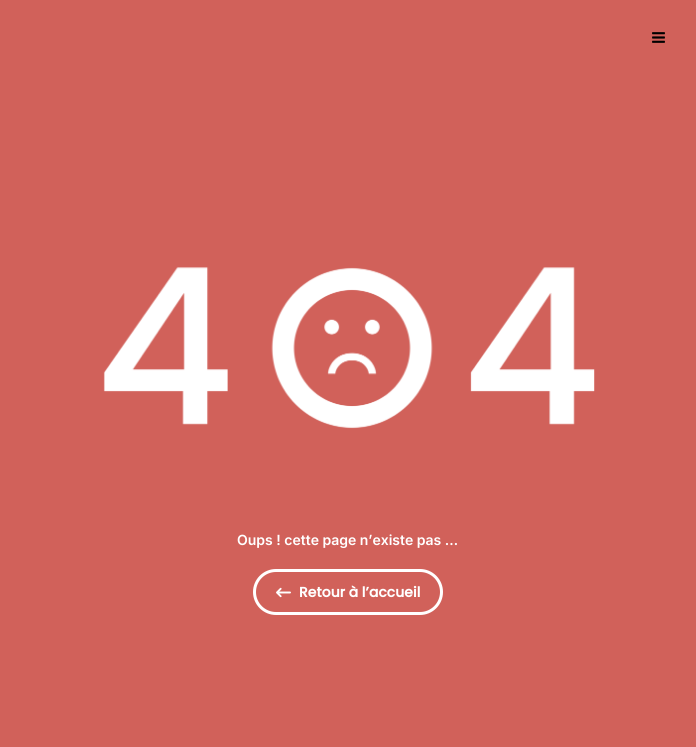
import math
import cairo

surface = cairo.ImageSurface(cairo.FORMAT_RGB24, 696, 747)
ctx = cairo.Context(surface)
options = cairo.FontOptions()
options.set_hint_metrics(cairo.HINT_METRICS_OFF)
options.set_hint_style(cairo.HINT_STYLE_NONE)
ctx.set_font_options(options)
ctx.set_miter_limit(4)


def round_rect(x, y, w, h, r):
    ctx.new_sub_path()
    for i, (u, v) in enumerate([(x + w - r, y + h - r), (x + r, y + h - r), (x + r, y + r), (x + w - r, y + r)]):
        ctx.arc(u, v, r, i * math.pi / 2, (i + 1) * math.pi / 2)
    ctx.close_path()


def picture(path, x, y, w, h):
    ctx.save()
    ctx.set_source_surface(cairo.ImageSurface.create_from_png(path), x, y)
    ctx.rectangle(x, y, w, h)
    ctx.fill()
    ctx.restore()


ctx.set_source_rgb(0.82, 0.38, 0.353)
ctx.paint()
picture("img1.png", 652, 32, 13, 11)
picture("img2.png", 103, 267, 492, 162)
ctx.select_font_face("Inter SemiBold")
ctx.set_font_size(14)
ctx.set_source_rgb(1, 1, 1)
ctx.move_to(237, 545)
ctx.show_text("Oups ! cette page n’existe pas …")
round_rect(254.5, 570.5, 187, 43, 21.5)
ctx.set_line_width(3)
ctx.stroke()
picture("img3.png", 276, 587, 15, 11)
ctx.select_font_face("Poppins", cairo.FONT_SLANT_NORMAL, cairo.FONT_WEIGHT_BOLD)
ctx.move_to(299, 597)
ctx.show_text("Retour à l’accueil")
surface.write_to_png("page.png")
